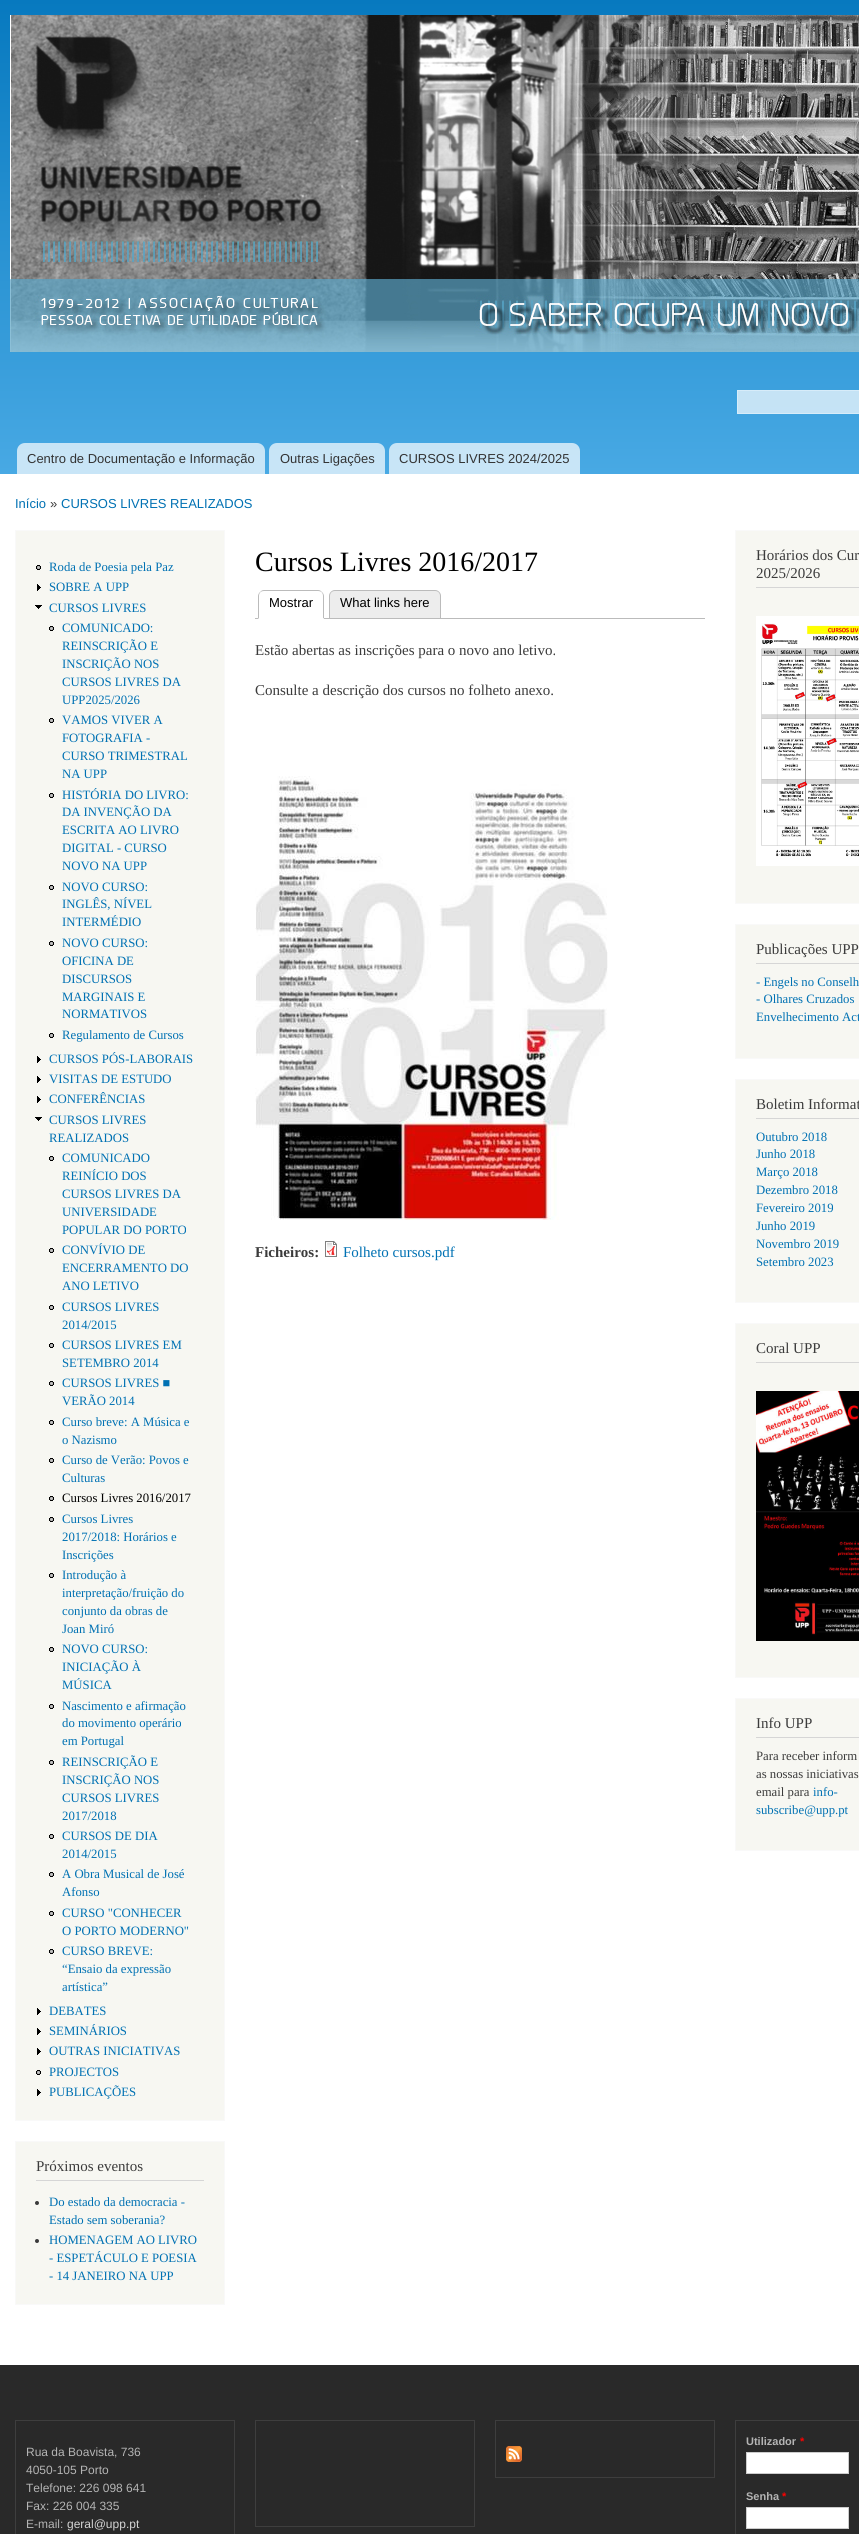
import math
import cairo

surface = cairo.ImageSurface(cairo.FORMAT_RGB24, 859, 2534)
ctx = cairo.Context(surface)
options = cairo.FontOptions()
options.set_hint_metrics(cairo.HINT_METRICS_OFF)
options.set_hint_style(cairo.HINT_STYLE_NONE)
ctx.set_font_options(options)
ctx.set_miter_limit(4)


def picture(path, x, y, w, h):
    ctx.save()
    ctx.set_source_surface(cairo.ImageSurface.create_from_png(path), x, y)
    ctx.rectangle(x, y, w, h)
    ctx.fill()
    ctx.restore()


ctx.set_source_rgb(1, 1, 1)
ctx.paint()
gradient = cairo.LinearGradient(480, 0, 480, 474)
gradient.add_color_stop_rgba(0, 0.027, 0.475, 0.749, 1)
gradient.add_color_stop_rgba(1, 0.282, 0.663, 0.894, 1)
ctx.set_source(gradient)
ctx.rectangle(0, 0, 859, 474)
ctx.fill()
gradient = cairo.LinearGradient(480, 0, 480, 474)
gradient.add_color_stop_rgba(0, 0.71, 0.843, 0.925, 1)
gradient.add_color_stop_rgba(1, 0.784, 0.898, 0.969, 1)
ctx.set_source(gradient)
ctx.rectangle(738, 391, 121, 22)
ctx.fill()
picture("img1.png", 10, 15, 849, 337)
ctx.rectangle(737.5, 390.5, 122, 23)
ctx.set_source_rgb(0.843, 0.922, 0.973)
ctx.set_line_width(1)
ctx.stroke()
ctx.set_source_rgba(1, 1, 1, 0.7)
ctx.new_path()
ctx.move_to(25, 443)
ctx.line_to(257, 443)
ctx.curve_to(261.5, 443, 265, 446.5, 265, 451)
ctx.line_to(265, 474)
ctx.line_to(17, 474)
ctx.line_to(17, 451)
ctx.curve_to(17, 446.5, 20.5, 443, 25, 443)
ctx.close_path()
ctx.fill()
ctx.select_font_face("Liberation Sans")
ctx.set_font_size(13)
ctx.set_source_rgb(0.2, 0.2, 0.2)
ctx.move_to(27, 463)
ctx.show_text("Centro de Documentação e Informação")
ctx.set_source_rgba(1, 1, 1, 0.7)
ctx.new_path()
ctx.move_to(277, 443)
ctx.line_to(377, 443)
ctx.curve_to(381.5, 443, 385, 446.5, 385, 451)
ctx.line_to(385, 474)
ctx.line_to(269, 474)
ctx.line_to(269, 451)
ctx.curve_to(269, 446.5, 272.5, 443, 277, 443)
ctx.close_path()
ctx.fill()
ctx.set_source_rgb(0.2, 0.2, 0.2)
ctx.move_to(280, 463)
ctx.show_text("Outras Ligações")
ctx.set_source_rgba(1, 1, 1, 0.7)
ctx.new_path()
ctx.move_to(397, 443)
ctx.line_to(572, 443)
ctx.curve_to(576.5, 443, 580, 446.5, 580, 451)
ctx.line_to(580, 474)
ctx.line_to(389, 474)
ctx.line_to(389, 451)
ctx.curve_to(389, 446.5, 392.5, 443, 397, 443)
ctx.close_path()
ctx.fill()
ctx.set_source_rgb(0.2, 0.2, 0.2)
ctx.move_to(399, 463)
ctx.show_text("CURSOS LIVRES 2024/2025")
ctx.set_source_rgb(0, 0.443, 0.702)
ctx.move_to(15, 508)
ctx.show_text("Início")
ctx.set_source_rgb(0.231, 0.231, 0.231)
ctx.move_to(50, 508)
ctx.show_text("»")
ctx.set_source_rgb(0, 0.443, 0.702)
ctx.move_to(61, 508)
ctx.show_text("CURSOS LIVRES REALIZADOS")
ctx.set_source_rgb(0.965, 0.965, 0.949)
ctx.rectangle(15.5, 530.5, 209, 1590)
ctx.fill_preserve()
ctx.set_source_rgb(0.976, 0.976, 0.976)
ctx.stroke()
picture("img2.png", 36, 565, 5, 5)
ctx.select_font_face("Liberation Serif")
ctx.set_font_size(12.75)
ctx.set_source_rgb(0, 0.443, 0.702)
ctx.move_to(49, 571)
ctx.show_text("Roda de Poesia pela Paz")
picture("img3.png", 37, 584, 4, 7)
ctx.move_to(49, 591)
ctx.show_text("SOBRE A UPP")
picture("img4.png", 35, 605, 7, 4)
ctx.move_to(49, 612)
ctx.show_text("CURSOS LIVRES")
picture("img2.png", 49, 626, 5, 5)
ctx.move_to(62, 632)
ctx.show_text("COMUNICADO:")
ctx.move_to(62, 650)
ctx.show_text("REINSCRIÇÃO E")
ctx.move_to(62, 668)
ctx.show_text("INSCRIÇÃO NOS")
ctx.move_to(62, 686)
ctx.show_text("CURSOS LIVRES DA")
ctx.move_to(62, 704)
ctx.show_text("UPP2025/2026")
picture("img2.png", 49, 718, 5, 5)
ctx.move_to(62, 724)
ctx.show_text("VAMOS VIVER A")
ctx.move_to(62, 742)
ctx.show_text("FOTOGRAFIA -")
ctx.move_to(62, 760)
ctx.show_text("CURSO TRIMESTRAL")
ctx.move_to(62, 778)
ctx.show_text("NA UPP")
picture("img2.png", 49, 793, 5, 5)
ctx.move_to(62, 799)
ctx.show_text("HISTÓRIA DO LIVRO:")
ctx.move_to(62, 816)
ctx.show_text("DA INVENÇÃO DA")
ctx.move_to(62, 834)
ctx.show_text("ESCRITA AO LIVRO")
ctx.move_to(62, 852)
ctx.show_text("DIGITAL - CURSO")
ctx.move_to(62, 870)
ctx.show_text("NOVO NA UPP")
picture("img2.png", 49, 885, 5, 5)
ctx.move_to(62, 891)
ctx.show_text("NOVO CURSO:")
ctx.move_to(62, 908)
ctx.show_text("INGLÊS, NÍVEL")
ctx.move_to(62, 926)
ctx.show_text("INTERMÉDIO")
picture("img2.png", 49, 941, 5, 5)
ctx.move_to(62, 947)
ctx.show_text("NOVO CURSO:")
ctx.move_to(62, 965)
ctx.show_text("OFICINA DE")
ctx.move_to(62, 983)
ctx.show_text("DISCURSOS")
ctx.move_to(62, 1001)
ctx.show_text("MARGINAIS E")
ctx.move_to(62, 1018)
ctx.show_text("NORMATIVOS")
picture("img2.png", 49, 1033, 5, 5)
ctx.move_to(62, 1039)
ctx.show_text("Regulamento de Cursos")
picture("img3.png", 37, 1056, 4, 7)
ctx.move_to(49, 1063)
ctx.show_text("CURSOS PÓS-LABORAIS")
picture("img3.png", 37, 1076, 4, 7)
ctx.move_to(49, 1083)
ctx.show_text("VISITAS DE ESTUDO")
picture("img3.png", 37, 1096, 4, 7)
ctx.move_to(49, 1103)
ctx.show_text("CONFERÊNCIAS")
picture("img4.png", 35, 1117, 7, 4)
ctx.move_to(49, 1124)
ctx.show_text("CURSOS LIVRES")
ctx.move_to(49, 1142)
ctx.show_text("REALIZADOS")
picture("img2.png", 49, 1156, 5, 5)
ctx.move_to(62, 1162)
ctx.show_text("COMUNICADO")
ctx.move_to(62, 1180)
ctx.show_text("REINÍCIO DOS")
ctx.move_to(62, 1198)
ctx.show_text("CURSOS LIVRES DA")
ctx.move_to(62, 1216)
ctx.show_text("UNIVERSIDADE")
ctx.move_to(62, 1234)
ctx.show_text("POPULAR DO PORTO")
picture("img2.png", 49, 1248, 5, 5)
ctx.move_to(62, 1254)
ctx.show_text("CONVÍVIO DE")
ctx.move_to(62, 1272)
ctx.show_text("ENCERRAMENTO DO")
ctx.move_to(62, 1290)
ctx.show_text("ANO LETIVO")
picture("img2.png", 49, 1305, 5, 5)
ctx.move_to(62, 1311)
ctx.show_text("CURSOS LIVRES")
ctx.move_to(62, 1329)
ctx.show_text("2014/2015")
picture("img2.png", 49, 1343, 5, 5)
ctx.move_to(62, 1349)
ctx.show_text("CURSOS LIVRES EM")
ctx.move_to(62, 1367)
ctx.show_text("SETEMBRO 2014")
picture("img2.png", 49, 1381, 5, 5)
ctx.move_to(62, 1387)
ctx.show_text("CURSOS LIVRES ■")
ctx.move_to(62, 1405)
ctx.show_text("VERÃO 2014")
picture("img2.png", 49, 1420, 5, 5)
ctx.move_to(62, 1426)
ctx.show_text("Curso breve: A Música e")
ctx.move_to(62, 1444)
ctx.show_text("o Nazismo")
picture("img2.png", 49, 1458, 5, 5)
ctx.move_to(62, 1464)
ctx.show_text("Curso de Verão: Povos e")
ctx.move_to(62, 1482)
ctx.show_text("Culturas")
picture("img2.png", 49, 1496, 5, 5)
ctx.set_source_rgb(0, 0, 0)
ctx.move_to(62, 1502)
ctx.show_text("Cursos Livres 2016/2017")
picture("img2.png", 49, 1517, 5, 5)
ctx.set_source_rgb(0, 0.443, 0.702)
ctx.move_to(62, 1523)
ctx.show_text("Cursos Livres")
ctx.move_to(62, 1541)
ctx.show_text("2017/2018: Horários e")
ctx.move_to(62, 1559)
ctx.show_text("Inscrições")
picture("img2.png", 49, 1573, 5, 5)
ctx.move_to(62, 1579)
ctx.show_text("Introdução à")
ctx.move_to(62, 1597)
ctx.show_text("interpretação/fruição do")
ctx.move_to(62, 1615)
ctx.show_text("conjunto da obras de")
ctx.move_to(62, 1633)
ctx.show_text("Joan Miró")
picture("img2.png", 49, 1647, 5, 5)
ctx.move_to(62, 1653)
ctx.show_text("NOVO CURSO:")
ctx.move_to(62, 1671)
ctx.show_text("INICIAÇÃO À")
ctx.move_to(62, 1689)
ctx.show_text("MÚSICA")
picture("img2.png", 49, 1704, 5, 5)
ctx.move_to(62, 1710)
ctx.show_text("Nascimento e afirmação")
ctx.move_to(62, 1727)
ctx.show_text("do movimento operário")
ctx.move_to(62, 1745)
ctx.show_text("em Portugal")
picture("img2.png", 49, 1760, 5, 5)
ctx.move_to(62, 1766)
ctx.show_text("REINSCRIÇÃO E")
ctx.move_to(62, 1784)
ctx.show_text("INSCRIÇÃO NOS")
ctx.move_to(62, 1802)
ctx.show_text("CURSOS LIVRES")
ctx.move_to(62, 1820)
ctx.show_text("2017/2018")
picture("img2.png", 49, 1834, 5, 5)
ctx.move_to(62, 1840)
ctx.show_text("CURSOS DE DIA")
ctx.move_to(62, 1858)
ctx.show_text("2014/2015")
picture("img2.png", 49, 1872, 5, 5)
ctx.move_to(62, 1878)
ctx.show_text("A Obra Musical de José")
ctx.move_to(62, 1896)
ctx.show_text("Afonso")
picture("img2.png", 49, 1911, 5, 5)
ctx.move_to(62, 1917)
ctx.show_text("CURSO \"CONHECER")
ctx.move_to(62, 1935)
ctx.show_text("O PORTO MODERNO\"")
picture("img2.png", 49, 1949, 5, 5)
ctx.move_to(62, 1955)
ctx.show_text("CURSO BREVE:")
ctx.move_to(62, 1973)
ctx.show_text("“Ensaio da expressão")
ctx.move_to(62, 1991)
ctx.show_text("artística”")
picture("img3.png", 37, 2008, 4, 7)
ctx.move_to(49, 2015)
ctx.show_text("DEBATES")
picture("img3.png", 37, 2028, 4, 7)
ctx.move_to(49, 2035)
ctx.show_text("SEMINÁRIOS")
picture("img3.png", 37, 2048, 4, 7)
ctx.move_to(49, 2055)
ctx.show_text("OUTRAS INICIATIVAS")
picture("img2.png", 36, 2070, 5, 5)
ctx.move_to(49, 2076)
ctx.show_text("PROJECTOS")
picture("img3.png", 37, 2089, 4, 7)
ctx.move_to(49, 2096)
ctx.show_text("PUBLICAÇÕES")
ctx.set_source_rgb(0.965, 0.965, 0.949)
ctx.rectangle(15.5, 2141.5, 209, 163)
ctx.fill_preserve()
ctx.set_source_rgb(0.976, 0.976, 0.976)
ctx.stroke()
ctx.set_source_rgb(0.839, 0.839, 0.839)
ctx.rectangle(36, 2180, 168, 1)
ctx.fill()
ctx.set_font_size(15)
ctx.set_source_rgb(0.231, 0.231, 0.231)
ctx.move_to(36, 2171)
ctx.show_text("Próximos eventos")
ctx.new_path()
ctx.arc(37, 2203, 2, 0, 2 * math.pi)
ctx.fill()
ctx.set_font_size(12.75)
ctx.set_source_rgb(0, 0.443, 0.702)
ctx.move_to(49, 2206)
ctx.show_text("Do estado da democracia -")
ctx.move_to(49, 2224)
ctx.show_text("Estado sem soberania?")
ctx.set_source_rgb(0.231, 0.231, 0.231)
ctx.new_path()
ctx.arc(37, 2241, 2, 0, 2 * math.pi)
ctx.fill()
ctx.set_source_rgb(0, 0.443, 0.702)
ctx.move_to(49, 2244)
ctx.show_text("HOMENAGEM AO LIVRO")
ctx.move_to(49, 2262)
ctx.show_text("- ESPETÁCULO E POESIA")
ctx.move_to(49, 2280)
ctx.show_text("- 14 JANEIRO NA UPP")
ctx.set_font_size(28)
ctx.set_source_rgb(0, 0, 0)
ctx.move_to(255, 571)
ctx.show_text("Cursos Livres 2016/2017")
ctx.set_source_rgb(0.733, 0.733, 0.733)
ctx.rectangle(255, 618, 450, 1)
ctx.fill()
ctx.set_source_rgb(1, 1, 1)
ctx.new_path()
ctx.move_to(264, 590)
ctx.line_to(318, 590)
ctx.curve_to(321.5, 590, 324, 592.5, 324, 596)
ctx.line_to(324, 619)
ctx.line_to(258, 619)
ctx.line_to(258, 596)
ctx.curve_to(258, 592.5, 260.5, 590, 264, 590)
ctx.close_path()
ctx.fill()
ctx.set_source_rgb(0.733, 0.733, 0.733)
ctx.new_path()
ctx.move_to(264, 590)
ctx.curve_to(262, 590, 261, 591, 260, 592)
ctx.curve_to(261, 592, 262, 591, 264, 591)
ctx.line_to(318, 591)
ctx.curve_to(320, 591, 321, 592, 322, 592)
ctx.curve_to(321, 591, 320, 590, 318, 590)
ctx.close_path()
ctx.fill()
ctx.new_path()
ctx.move_to(324, 619)
ctx.line_to(324, 596)
ctx.curve_to(324, 594.5, 323, 593, 322, 592)
ctx.line_to(321.5, 592.5)
ctx.curve_to(322.5, 593, 323, 594.5, 323, 596)
ctx.line_to(323, 618)
ctx.close_path()
ctx.fill()
ctx.set_source_rgb(1, 1, 1)
ctx.new_path()
ctx.move_to(324, 619)
ctx.line_to(323, 618)
ctx.line_to(259, 618)
ctx.line_to(258, 619)
ctx.close_path()
ctx.fill()
ctx.set_source_rgb(0.733, 0.733, 0.733)
ctx.new_path()
ctx.move_to(258, 619)
ctx.line_to(259, 618)
ctx.line_to(259, 596)
ctx.curve_to(259, 594.5, 259.5, 593, 260.5, 592.5)
ctx.line_to(260, 592)
ctx.curve_to(259, 593, 258, 594.5, 258, 596)
ctx.close_path()
ctx.fill()
ctx.select_font_face("Liberation Sans")
ctx.set_font_size(13)
ctx.set_source_rgb(0, 0, 0)
ctx.move_to(269, 607)
ctx.show_text("Mostrar")
ctx.set_source_rgb(0.929, 0.929, 0.929)
ctx.new_path()
ctx.move_to(335, 590)
ctx.line_to(435, 590)
ctx.curve_to(438.5, 590, 441, 592.5, 441, 596)
ctx.line_to(441, 618)
ctx.line_to(329, 618)
ctx.line_to(329, 596)
ctx.curve_to(329, 592.5, 331.5, 590, 335, 590)
ctx.close_path()
ctx.fill()
ctx.set_source_rgb(0.733, 0.733, 0.733)
ctx.set_fill_rule(cairo.FILL_RULE_EVEN_ODD)
ctx.new_path()
ctx.move_to(335, 590)
ctx.line_to(435, 590)
ctx.curve_to(438, 590, 441, 593, 441, 596)
ctx.line_to(441, 618)
ctx.line_to(329, 618)
ctx.line_to(329, 596)
ctx.curve_to(329, 593, 332, 590, 335, 590)
ctx.close_path()
ctx.move_to(335, 591)
ctx.line_to(435, 591)
ctx.curve_to(438, 591, 440, 593, 440, 596)
ctx.line_to(440, 618)
ctx.line_to(330, 618)
ctx.line_to(330, 596)
ctx.curve_to(330, 593, 332, 591, 335, 591)
ctx.close_path()
ctx.fill()
ctx.set_source_rgb(0, 0, 0)
ctx.move_to(340, 607)
ctx.show_text("What links here")
ctx.select_font_face("Liberation Serif")
ctx.set_font_size(15)
ctx.set_source_rgb(0.231, 0.231, 0.231)
ctx.move_to(255, 655)
ctx.show_text("Estão abertas as inscrições para o novo ano letivo.")
ctx.move_to(255, 695)
ctx.show_text("Consulte a descrição dos cursos no folheto anexo.")
picture("img5.png", 255, 776, 353, 444)
ctx.select_font_face("Liberation Serif", cairo.FONT_SLANT_NORMAL, cairo.FONT_WEIGHT_BOLD)
ctx.move_to(255, 1257)
ctx.show_text("Ficheiros:")
picture("img6.png", 325, 1241, 12, 16)
ctx.select_font_face("Liberation Serif")
ctx.set_source_rgb(0, 0.443, 0.702)
ctx.move_to(343, 1257)
ctx.show_text("Folheto cursos.pdf")
ctx.set_source_rgb(0.965, 0.965, 0.949)
ctx.rectangle(735.5, 530.5, 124, 373)
ctx.fill_preserve()
ctx.set_source_rgb(0.976, 0.976, 0.976)
ctx.stroke()
ctx.set_source_rgb(0.839, 0.839, 0.839)
ctx.rectangle(756, 587, 103, 1)
ctx.fill()
ctx.set_source_rgb(0.231, 0.231, 0.231)
ctx.move_to(756, 560)
ctx.show_text("Horários dos Cur")
ctx.move_to(756, 578)
ctx.show_text("2025/2026")
picture("img7.png", 756, 616, 103, 250)
ctx.set_source_rgb(0.965, 0.965, 0.949)
ctx.rectangle(735.5, 924.5, 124, 134)
ctx.fill_preserve()
ctx.set_source_rgb(0.976, 0.976, 0.976)
ctx.stroke()
ctx.set_source_rgb(0.839, 0.839, 0.839)
ctx.rectangle(756, 963, 103, 1)
ctx.fill()
ctx.set_source_rgb(0.231, 0.231, 0.231)
ctx.move_to(756, 954)
ctx.show_text("Publicações UPP")
ctx.set_font_size(12.75)
ctx.set_source_rgb(0, 0.443, 0.702)
ctx.move_to(756, 986)
ctx.show_text("- Engels no Conselh")
ctx.move_to(756, 1003)
ctx.show_text("- Olhares Cruzados")
ctx.move_to(756, 1021)
ctx.show_text("Envelhecimento Act")
ctx.set_source_rgb(0.965, 0.965, 0.949)
ctx.rectangle(735.5, 1079.5, 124, 223)
ctx.fill_preserve()
ctx.set_source_rgb(0.976, 0.976, 0.976)
ctx.stroke()
ctx.set_source_rgb(0.839, 0.839, 0.839)
ctx.rectangle(756, 1118, 103, 1)
ctx.fill()
ctx.set_font_size(15)
ctx.set_source_rgb(0.231, 0.231, 0.231)
ctx.move_to(756, 1109)
ctx.show_text("Boletim Informat")
ctx.set_font_size(12.75)
ctx.set_source_rgb(0, 0.443, 0.702)
ctx.move_to(756, 1141)
ctx.show_text("Outubro 2018")
ctx.move_to(756, 1158)
ctx.show_text("Junho 2018")
ctx.move_to(756, 1176)
ctx.show_text("Março 2018")
ctx.move_to(756, 1194)
ctx.show_text("Dezembro 2018")
ctx.move_to(756, 1212)
ctx.show_text("Fevereiro 2019")
ctx.move_to(756, 1230)
ctx.show_text("Junho 2019")
ctx.move_to(756, 1248)
ctx.show_text("Novembro 2019")
ctx.move_to(756, 1266)
ctx.show_text("Setembro 2023")
ctx.set_source_rgb(0.965, 0.965, 0.949)
ctx.rectangle(735.5, 1323.5, 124, 354)
ctx.fill_preserve()
ctx.set_source_rgb(0.976, 0.976, 0.976)
ctx.stroke()
ctx.set_source_rgb(0.839, 0.839, 0.839)
ctx.rectangle(756, 1362, 103, 1)
ctx.fill()
ctx.set_font_size(15)
ctx.set_source_rgb(0.231, 0.231, 0.231)
ctx.move_to(756, 1353)
ctx.show_text("Coral UPP")
picture("img8.png", 756, 1391, 103, 250)
ctx.set_source_rgb(0.965, 0.965, 0.949)
ctx.rectangle(735.5, 1698.5, 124, 152)
ctx.fill_preserve()
ctx.set_source_rgb(0.976, 0.976, 0.976)
ctx.stroke()
ctx.set_source_rgb(0.839, 0.839, 0.839)
ctx.rectangle(756, 1737, 103, 1)
ctx.fill()
ctx.set_source_rgb(0.231, 0.231, 0.231)
ctx.move_to(756, 1728)
ctx.show_text("Info UPP")
ctx.set_font_size(12.75)
ctx.move_to(756, 1760)
ctx.show_text("Para receber inform")
ctx.move_to(756, 1778)
ctx.show_text("as nossas iniciativas")
ctx.move_to(756, 1796)
ctx.show_text("email para")
ctx.set_source_rgb(0, 0.443, 0.702)
ctx.move_to(813, 1796)
ctx.show_text("info-")
ctx.move_to(756, 1814)
ctx.show_text("subscribe@upp.pt")
ctx.set_source_rgb(0.161, 0.161, 0.161)
ctx.rectangle(0, 2365, 859, 169)
ctx.fill()
ctx.rectangle(15.5, 2420.5, 219, 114)
ctx.set_source_rgb(0.243, 0.243, 0.243)
ctx.stroke()
ctx.select_font_face("Liberation Sans")
ctx.set_font_size(12)
ctx.set_source_rgb(0.706, 0.706, 0.706)
ctx.move_to(26, 2456)
ctx.show_text("Rua da Boavista, 736")
ctx.move_to(26, 2474)
ctx.show_text("4050-105 Porto")
ctx.move_to(26, 2492)
ctx.show_text("Telefone: 226 098 641")
ctx.move_to(26, 2510)
ctx.show_text("Fax: 226 004 335")
ctx.move_to(26, 2528)
ctx.show_text("E-mail:")
ctx.set_source_rgb(0.831, 0.831, 0.831)
ctx.move_to(67, 2528)
ctx.show_text("geral@upp.pt")
ctx.rectangle(255.5, 2420.5, 219, 106)
ctx.set_source_rgb(0.243, 0.243, 0.243)
ctx.stroke()
ctx.rectangle(495.5, 2420.5, 219, 57)
ctx.stroke()
picture("img9.png", 506, 2446, 16, 16)
ctx.rectangle(735.5, 2420.5, 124, 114)
ctx.stroke()
ctx.select_font_face("Liberation Sans", cairo.FONT_SLANT_NORMAL, cairo.FONT_WEIGHT_BOLD)
ctx.set_font_size(11)
ctx.set_source_rgb(0.706, 0.706, 0.706)
ctx.move_to(746, 2445)
ctx.show_text("Utilizador")
ctx.set_source_rgb(1, 0, 0)
ctx.move_to(800, 2445)
ctx.show_text("*")
ctx.set_source_rgb(1, 1, 1)
ctx.rectangle(746.5, 2452.5, 102, 21)
ctx.fill_preserve()
ctx.set_source_rgb(0.8, 0.8, 0.8)
ctx.stroke()
ctx.set_source_rgb(0.706, 0.706, 0.706)
ctx.move_to(746, 2500)
ctx.show_text("Senha")
ctx.set_source_rgb(1, 0, 0)
ctx.move_to(782, 2500)
ctx.show_text("*")
ctx.set_source_rgb(1, 1, 1)
ctx.rectangle(746.5, 2507.5, 102, 21)
ctx.fill_preserve()
ctx.set_source_rgb(0.8, 0.8, 0.8)
ctx.stroke()
surface.write_to_png("page.png")
